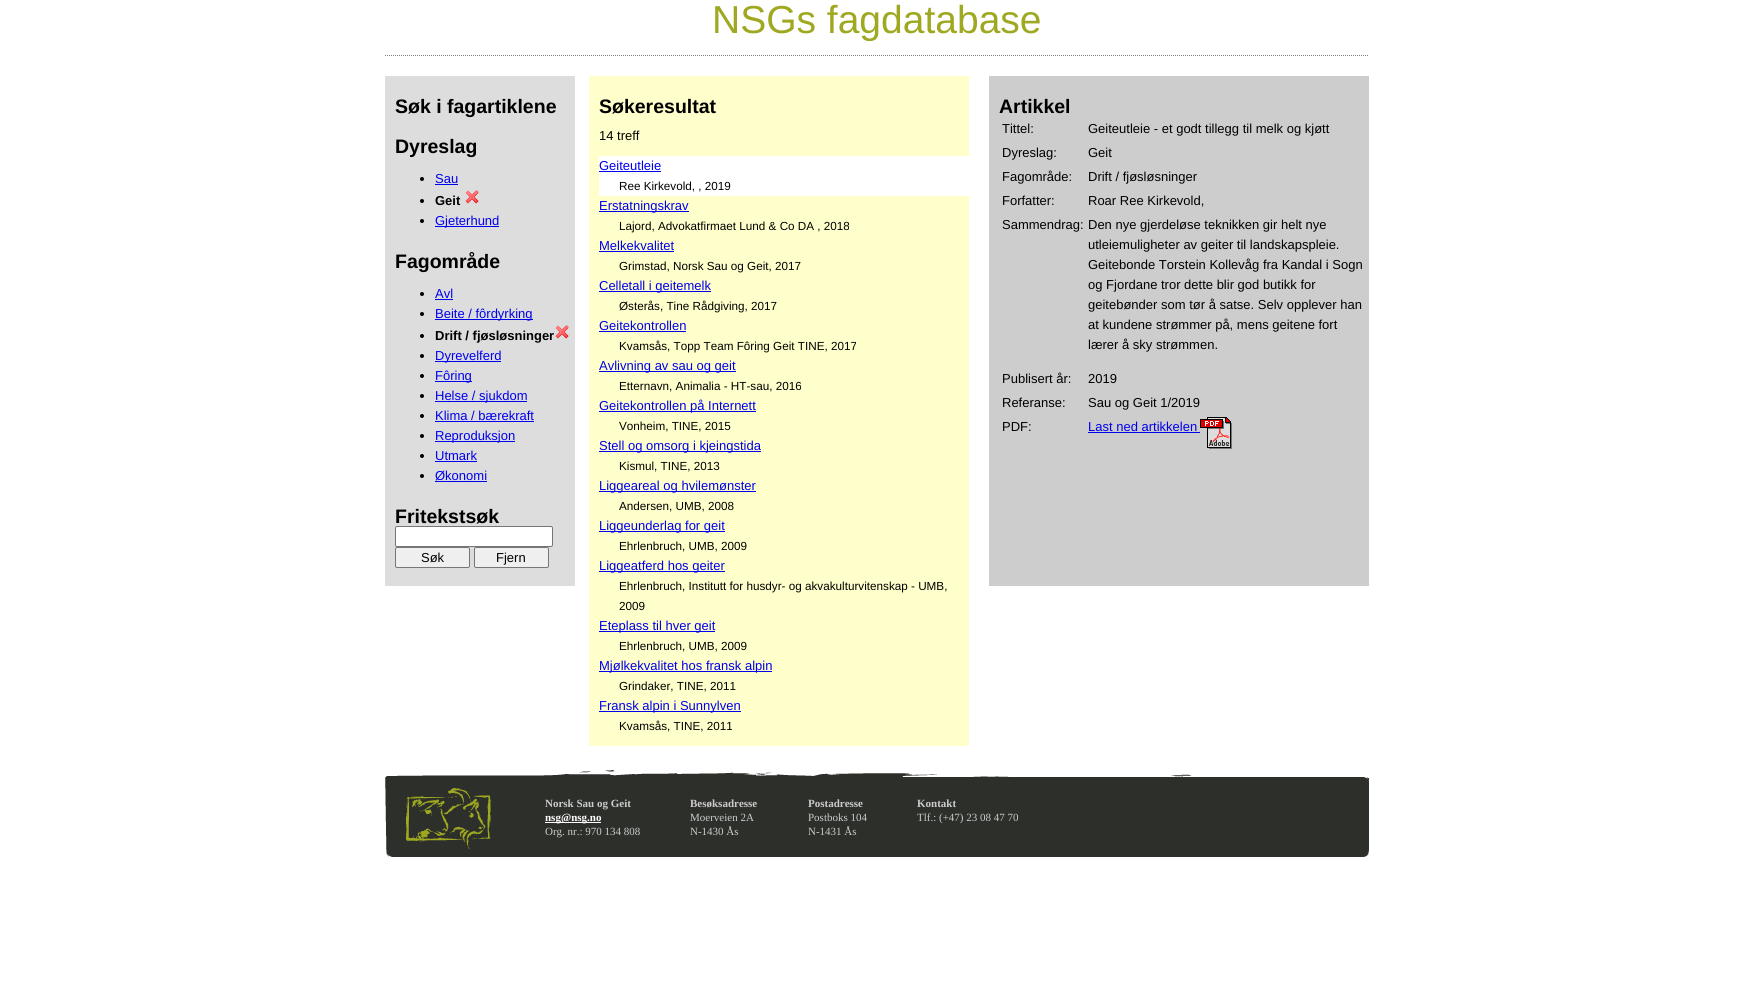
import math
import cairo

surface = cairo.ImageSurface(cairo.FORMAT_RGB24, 1754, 994)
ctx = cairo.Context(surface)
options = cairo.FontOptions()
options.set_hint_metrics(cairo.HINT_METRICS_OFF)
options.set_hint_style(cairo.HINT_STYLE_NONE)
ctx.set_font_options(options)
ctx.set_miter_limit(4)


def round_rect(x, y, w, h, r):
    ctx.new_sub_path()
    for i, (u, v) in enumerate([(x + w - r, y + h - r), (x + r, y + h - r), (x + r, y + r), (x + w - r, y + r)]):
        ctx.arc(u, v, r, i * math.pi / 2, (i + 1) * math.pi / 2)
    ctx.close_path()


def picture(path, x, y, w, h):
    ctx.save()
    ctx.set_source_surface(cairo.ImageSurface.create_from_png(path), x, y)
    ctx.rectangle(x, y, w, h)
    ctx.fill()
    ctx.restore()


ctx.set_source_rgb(1, 1, 1)
ctx.paint()
ctx.new_path()
ctx.move_to(385, 55.5)
ctx.line_to(1369, 55.5)
ctx.set_source_rgb(0.502, 0.502, 0.502)
ctx.set_line_width(1)
ctx.set_dash([1, 1])
ctx.stroke()
ctx.select_font_face("Liberation Sans")
ctx.set_font_size(39)
ctx.set_source_rgb(0.62, 0.659, 0.125)
ctx.move_to(712, 33)
ctx.show_text("NSGs fagdatabase")
ctx.set_source_rgb(0.867, 0.867, 0.867)
ctx.rectangle(385, 76, 190, 510)
ctx.fill()
ctx.select_font_face("Liberation Sans", cairo.FONT_SLANT_NORMAL, cairo.FONT_WEIGHT_BOLD)
ctx.set_font_size(19.5)
ctx.set_source_rgb(0, 0, 0)
ctx.move_to(395, 113)
ctx.show_text("Søk i fagartiklene")
ctx.move_to(395, 153)
ctx.show_text("Dyreslag")
ctx.new_path()
ctx.arc(422, 179, 2, 0, 2 * math.pi)
ctx.fill()
ctx.select_font_face("Liberation Sans")
ctx.set_font_size(13)
ctx.set_source_rgb(0, 0, 0.933)
ctx.move_to(435, 183)
ctx.show_text("Sau")
ctx.rectangle(435, 184, 23, 1)
ctx.fill()
ctx.set_source_rgb(0, 0, 0)
ctx.arc(422, 201, 2, 0, 2 * math.pi)
ctx.fill()
ctx.select_font_face("Liberation Sans", cairo.FONT_SLANT_NORMAL, cairo.FONT_WEIGHT_BOLD)
ctx.move_to(435, 205)
ctx.show_text("Geit")
picture("img1.png", 465, 189, 14, 15)
ctx.arc(422, 221, 2, 0, 2 * math.pi)
ctx.fill()
ctx.set_source_rgb(0, 0, 0.933)
ctx.rectangle(435, 226, 64, 1)
ctx.fill()
ctx.select_font_face("Liberation Sans")
ctx.move_to(435, 225)
ctx.show_text("Gjeterhund")
ctx.select_font_face("Liberation Sans", cairo.FONT_SLANT_NORMAL, cairo.FONT_WEIGHT_BOLD)
ctx.set_font_size(19.5)
ctx.set_source_rgb(0, 0, 0)
ctx.move_to(395, 268)
ctx.show_text("Fagområde")
ctx.new_path()
ctx.arc(422, 294, 2, 0, 2 * math.pi)
ctx.fill()
ctx.select_font_face("Liberation Sans")
ctx.set_font_size(13)
ctx.set_source_rgb(0, 0, 0.933)
ctx.move_to(435, 298)
ctx.show_text("Avl")
ctx.rectangle(435, 299, 18, 1)
ctx.fill()
ctx.set_source_rgb(0, 0, 0)
ctx.arc(422, 314, 2, 0, 2 * math.pi)
ctx.fill()
ctx.set_source_rgb(0, 0, 0.933)
ctx.rectangle(435, 319, 98, 1)
ctx.fill()
ctx.move_to(435, 318)
ctx.show_text("Beite / fôrdyrking")
ctx.set_source_rgb(0, 0, 0)
ctx.new_path()
ctx.arc(422, 336, 2, 0, 2 * math.pi)
ctx.fill()
ctx.select_font_face("Liberation Sans", cairo.FONT_SLANT_NORMAL, cairo.FONT_WEIGHT_BOLD)
ctx.move_to(435, 340)
ctx.show_text("Drift / fjøsløsninger")
picture("img1.png", 555, 324, 14, 15)
ctx.arc(422, 356, 2, 0, 2 * math.pi)
ctx.fill()
ctx.set_source_rgb(0, 0, 0.933)
ctx.rectangle(435, 361, 66, 1)
ctx.fill()
ctx.select_font_face("Liberation Sans")
ctx.move_to(435, 360)
ctx.show_text("Dyrevelferd")
ctx.set_source_rgb(0, 0, 0)
ctx.new_path()
ctx.arc(422, 376, 2, 0, 2 * math.pi)
ctx.fill()
ctx.set_source_rgb(0, 0, 0.933)
ctx.rectangle(435, 381, 37, 1)
ctx.fill()
ctx.move_to(435, 380)
ctx.show_text("Fôring")
ctx.set_source_rgb(0, 0, 0)
ctx.new_path()
ctx.arc(422, 396, 2, 0, 2 * math.pi)
ctx.fill()
ctx.set_source_rgb(0, 0, 0.933)
ctx.rectangle(435, 401, 92, 1)
ctx.fill()
ctx.move_to(435, 400)
ctx.show_text("Helse / sjukdom")
ctx.set_source_rgb(0, 0, 0)
ctx.new_path()
ctx.arc(422, 416, 2, 0, 2 * math.pi)
ctx.fill()
ctx.set_source_rgb(0, 0, 0.933)
ctx.move_to(435, 420)
ctx.show_text("Klima / bærekraft")
ctx.rectangle(435, 421, 99, 1)
ctx.fill()
ctx.set_source_rgb(0, 0, 0)
ctx.arc(422, 436, 2, 0, 2 * math.pi)
ctx.fill()
ctx.set_source_rgb(0, 0, 0.933)
ctx.rectangle(435, 441, 80, 1)
ctx.fill()
ctx.move_to(435, 440)
ctx.show_text("Reproduksjon")
ctx.set_source_rgb(0, 0, 0)
ctx.new_path()
ctx.arc(422, 456, 2, 0, 2 * math.pi)
ctx.fill()
ctx.set_source_rgb(0, 0, 0.933)
ctx.move_to(435, 460)
ctx.show_text("Utmark")
ctx.rectangle(435, 461, 42, 1)
ctx.fill()
ctx.set_source_rgb(0, 0, 0)
ctx.arc(422, 476, 2, 0, 2 * math.pi)
ctx.fill()
ctx.set_source_rgb(0, 0, 0.933)
ctx.move_to(435, 480)
ctx.show_text("Økonomi")
ctx.rectangle(435, 481, 52, 1)
ctx.fill()
ctx.select_font_face("Liberation Sans", cairo.FONT_SLANT_NORMAL, cairo.FONT_WEIGHT_BOLD)
ctx.set_font_size(19.5)
ctx.set_source_rgb(0, 0, 0)
ctx.move_to(395, 523)
ctx.show_text("Fritekstsøk")
ctx.set_source_rgb(1, 1, 1)
round_rect(395.5, 526.5, 157, 20, 1.5)
ctx.fill_preserve()
ctx.set_source_rgb(0.463, 0.463, 0.463)
ctx.set_dash([])
ctx.stroke()
ctx.set_source_rgb(0.937, 0.937, 0.937)
round_rect(395.5, 547.5, 74, 20, 1.5)
ctx.fill_preserve()
ctx.set_source_rgb(0.463, 0.463, 0.463)
ctx.stroke()
ctx.select_font_face("Liberation Sans")
ctx.set_font_size(13)
ctx.set_source_rgb(0, 0, 0)
ctx.move_to(421, 562)
ctx.show_text("Søk")
ctx.set_source_rgb(0.937, 0.937, 0.937)
round_rect(474.5, 547.5, 74, 20, 1.5)
ctx.fill_preserve()
ctx.set_source_rgb(0.463, 0.463, 0.463)
ctx.stroke()
ctx.set_source_rgb(0, 0, 0)
ctx.move_to(496, 562)
ctx.show_text("Fjern")
ctx.set_source_rgb(1, 1, 0.8)
ctx.rectangle(589, 76, 380, 670)
ctx.fill()
ctx.select_font_face("Liberation Sans", cairo.FONT_SLANT_NORMAL, cairo.FONT_WEIGHT_BOLD)
ctx.set_font_size(19.5)
ctx.set_source_rgb(0, 0, 0)
ctx.move_to(599, 113)
ctx.show_text("Søkeresultat")
ctx.select_font_face("Liberation Sans")
ctx.set_font_size(13)
ctx.move_to(599, 140)
ctx.show_text("14 treff")
ctx.set_source_rgb(1, 1, 1)
ctx.rectangle(599, 156, 370, 40)
ctx.fill()
ctx.set_source_rgb(0, 0, 0.933)
ctx.move_to(599, 170)
ctx.show_text("Geiteutleie")
ctx.rectangle(599, 171, 62, 1)
ctx.fill()
ctx.set_font_size(11.7)
ctx.set_source_rgb(0, 0, 0)
ctx.move_to(619, 190)
ctx.show_text("Ree Kirkevold, , 2019")
ctx.set_source_rgb(0, 0, 0.933)
ctx.rectangle(599, 211, 90, 1)
ctx.fill()
ctx.set_font_size(13)
ctx.move_to(599, 210)
ctx.show_text("Erstatningskrav")
ctx.set_font_size(11.7)
ctx.set_source_rgb(0, 0, 0)
ctx.move_to(619, 230)
ctx.show_text("Lajord, Advokatfirmaet Lund & Co DA , 2018")
ctx.set_font_size(13)
ctx.set_source_rgb(0, 0, 0.933)
ctx.move_to(599, 250)
ctx.show_text("Melkekvalitet")
ctx.rectangle(599, 251, 75, 1)
ctx.fill()
ctx.set_font_size(11.7)
ctx.set_source_rgb(0, 0, 0)
ctx.move_to(619, 270)
ctx.show_text("Grimstad, Norsk Sau og Geit, 2017")
ctx.set_source_rgb(0, 0, 0.933)
ctx.rectangle(599, 291, 112, 1)
ctx.fill()
ctx.set_font_size(13)
ctx.move_to(599, 290)
ctx.show_text("Celletall i geitemelk")
ctx.set_font_size(11.7)
ctx.set_source_rgb(0, 0, 0)
ctx.move_to(619, 310)
ctx.show_text("Østerås, Tine Rådgiving, 2017")
ctx.set_font_size(13)
ctx.set_source_rgb(0, 0, 0.933)
ctx.move_to(599, 330)
ctx.show_text("Geitekontrollen")
ctx.rectangle(599, 331, 87, 1)
ctx.fill()
ctx.set_font_size(11.7)
ctx.set_source_rgb(0, 0, 0)
ctx.move_to(619, 350)
ctx.show_text("Kvamsås, Topp Team Fôring Geit TINE, 2017")
ctx.set_source_rgb(0, 0, 0.933)
ctx.rectangle(599, 371, 137, 1)
ctx.fill()
ctx.set_font_size(13)
ctx.move_to(599, 370)
ctx.show_text("Avlivning av sau og geit")
ctx.set_font_size(11.7)
ctx.set_source_rgb(0, 0, 0)
ctx.move_to(619, 390)
ctx.show_text("Etternavn, Animalia - HT-sau, 2016")
ctx.set_source_rgb(0, 0, 0.933)
ctx.rectangle(599, 411, 157, 1)
ctx.fill()
ctx.set_font_size(13)
ctx.move_to(599, 410)
ctx.show_text("Geitekontrollen på Internett")
ctx.set_font_size(11.7)
ctx.set_source_rgb(0, 0, 0)
ctx.move_to(619, 430)
ctx.show_text("Vonheim, TINE, 2015")
ctx.set_source_rgb(0, 0, 0.933)
ctx.rectangle(599, 451, 162, 1)
ctx.fill()
ctx.set_font_size(13)
ctx.move_to(599, 450)
ctx.show_text("Stell og omsorg i kjeingstida")
ctx.set_font_size(11.7)
ctx.set_source_rgb(0, 0, 0)
ctx.move_to(619, 470)
ctx.show_text("Kismul, TINE, 2013")
ctx.set_source_rgb(0, 0, 0.933)
ctx.rectangle(599, 491, 157, 1)
ctx.fill()
ctx.set_font_size(13)
ctx.move_to(599, 490)
ctx.show_text("Liggeareal og hvilemønster")
ctx.set_font_size(11.7)
ctx.set_source_rgb(0, 0, 0)
ctx.move_to(619, 510)
ctx.show_text("Andersen, UMB, 2008")
ctx.set_source_rgb(0, 0, 0.933)
ctx.rectangle(599, 531, 126, 1)
ctx.fill()
ctx.set_font_size(13)
ctx.move_to(599, 530)
ctx.show_text("Liggeunderlag for geit")
ctx.set_font_size(11.7)
ctx.set_source_rgb(0, 0, 0)
ctx.move_to(619, 550)
ctx.show_text("Ehrlenbruch, UMB, 2009")
ctx.set_source_rgb(0, 0, 0.933)
ctx.rectangle(599, 571, 126, 1)
ctx.fill()
ctx.set_font_size(13)
ctx.move_to(599, 570)
ctx.show_text("Liggeatferd hos geiter")
ctx.set_font_size(11.7)
ctx.set_source_rgb(0, 0, 0)
ctx.move_to(619, 590)
ctx.show_text("Ehrlenbruch, Institutt for husdyr- og akvakulturvitenskap - UMB,")
ctx.move_to(619, 610)
ctx.show_text("2009")
ctx.set_source_rgb(0, 0, 0.933)
ctx.rectangle(599, 631, 116, 1)
ctx.fill()
ctx.set_font_size(13)
ctx.move_to(599, 630)
ctx.show_text("Eteplass til hver geit")
ctx.set_font_size(11.7)
ctx.set_source_rgb(0, 0, 0)
ctx.move_to(619, 650)
ctx.show_text("Ehrlenbruch, UMB, 2009")
ctx.set_source_rgb(0, 0, 0.933)
ctx.rectangle(599, 671, 173, 1)
ctx.fill()
ctx.set_font_size(13)
ctx.move_to(599, 670)
ctx.show_text("Mjølkekvalitet hos fransk alpin")
ctx.set_font_size(11.7)
ctx.set_source_rgb(0, 0, 0)
ctx.move_to(619, 690)
ctx.show_text("Grindaker, TINE, 2011")
ctx.set_source_rgb(0, 0, 0.933)
ctx.rectangle(599, 711, 142, 1)
ctx.fill()
ctx.set_font_size(13)
ctx.move_to(599, 710)
ctx.show_text("Fransk alpin i Sunnylven")
ctx.set_font_size(11.7)
ctx.set_source_rgb(0, 0, 0)
ctx.move_to(619, 730)
ctx.show_text("Kvamsås, TINE, 2011")
ctx.set_source_rgb(0.804, 0.804, 0.804)
ctx.rectangle(989, 76, 380, 510)
ctx.fill()
ctx.select_font_face("Liberation Sans", cairo.FONT_SLANT_NORMAL, cairo.FONT_WEIGHT_BOLD)
ctx.set_font_size(19.5)
ctx.set_source_rgb(0, 0, 0)
ctx.move_to(999, 113)
ctx.show_text("Artikkel")
ctx.select_font_face("Liberation Sans")
ctx.set_font_size(13)
ctx.move_to(1002, 133)
ctx.show_text("Tittel:")
ctx.move_to(1088, 133)
ctx.show_text("Geiteutleie - et godt tillegg til melk og kjøtt")
ctx.move_to(1002, 157)
ctx.show_text("Dyreslag:")
ctx.move_to(1088, 157)
ctx.show_text("Geit")
ctx.move_to(1002, 181)
ctx.show_text("Fagområde:")
ctx.move_to(1088, 181)
ctx.show_text("Drift / fjøsløsninger")
ctx.move_to(1002, 205)
ctx.show_text("Forfatter:")
ctx.move_to(1088, 205)
ctx.show_text("Roar Ree Kirkevold,")
ctx.move_to(1002, 229)
ctx.show_text("Sammendrag:")
ctx.move_to(1088, 229)
ctx.show_text("Den nye gjerdeløse teknikken gir helt nye")
ctx.move_to(1088, 249)
ctx.show_text("utleiemuligheter av geiter til landskapspleie.")
ctx.move_to(1088, 269)
ctx.show_text("Geitebonde Torstein Kollevåg fra Kandal i Sogn")
ctx.move_to(1088, 289)
ctx.show_text("og Fjordane tror dette blir god butikk for")
ctx.move_to(1088, 309)
ctx.show_text("geitebønder som tør å satse. Selv opplever han")
ctx.move_to(1088, 329)
ctx.show_text("at kundene strømmer på, mens geitene fort")
ctx.move_to(1088, 349)
ctx.show_text("lærer å sky strømmen.")
ctx.move_to(1002, 383)
ctx.show_text("Publisert år:")
ctx.move_to(1088, 383)
ctx.show_text("2019")
ctx.move_to(1002, 407)
ctx.show_text("Referanse:")
ctx.move_to(1088, 407)
ctx.show_text("Sau og Geit 1/2019")
ctx.move_to(1002, 431)
ctx.show_text("PDF:")
ctx.set_source_rgb(0, 0, 0.933)
ctx.move_to(1088, 431)
ctx.show_text("Last ned artikkelen")
ctx.rectangle(1088, 432, 112, 1)
ctx.fill()
picture("img2.png", 1200, 417, 32, 32)
picture("img3.png", 385, 770, 984, 88)
ctx.select_font_face("Liberation Serif", cairo.FONT_SLANT_NORMAL, cairo.FONT_WEIGHT_BOLD)
ctx.set_font_size(11)
ctx.set_source_rgb(0.8, 0.8, 0.8)
ctx.move_to(545, 807)
ctx.show_text("Norsk Sau og Geit")
ctx.set_source_rgb(1, 1, 1)
ctx.rectangle(545, 822, 56, 1)
ctx.fill()
ctx.move_to(545, 821)
ctx.show_text("nsg@nsg.no")
ctx.select_font_face("Liberation Serif")
ctx.set_source_rgb(0.8, 0.8, 0.8)
ctx.move_to(545, 835)
ctx.show_text("Org. nr.: 970 134 808")
ctx.select_font_face("Liberation Serif", cairo.FONT_SLANT_NORMAL, cairo.FONT_WEIGHT_BOLD)
ctx.move_to(690, 807)
ctx.show_text("Besøksadresse")
ctx.select_font_face("Liberation Serif")
ctx.move_to(690, 821)
ctx.show_text("Moerveien 2A")
ctx.move_to(690, 835)
ctx.show_text("N-1430 Ås")
ctx.select_font_face("Liberation Serif", cairo.FONT_SLANT_NORMAL, cairo.FONT_WEIGHT_BOLD)
ctx.move_to(808, 807)
ctx.show_text("Postadresse")
ctx.select_font_face("Liberation Serif")
ctx.move_to(808, 821)
ctx.show_text("Postboks 104")
ctx.move_to(808, 835)
ctx.show_text("N-1431 Ås")
ctx.select_font_face("Liberation Serif", cairo.FONT_SLANT_NORMAL, cairo.FONT_WEIGHT_BOLD)
ctx.move_to(917, 807)
ctx.show_text("Kontakt")
ctx.select_font_face("Liberation Serif")
ctx.move_to(917, 821)
ctx.show_text("Tlf.: (+47) 23 08 47 70")
surface.write_to_png("page.png")
